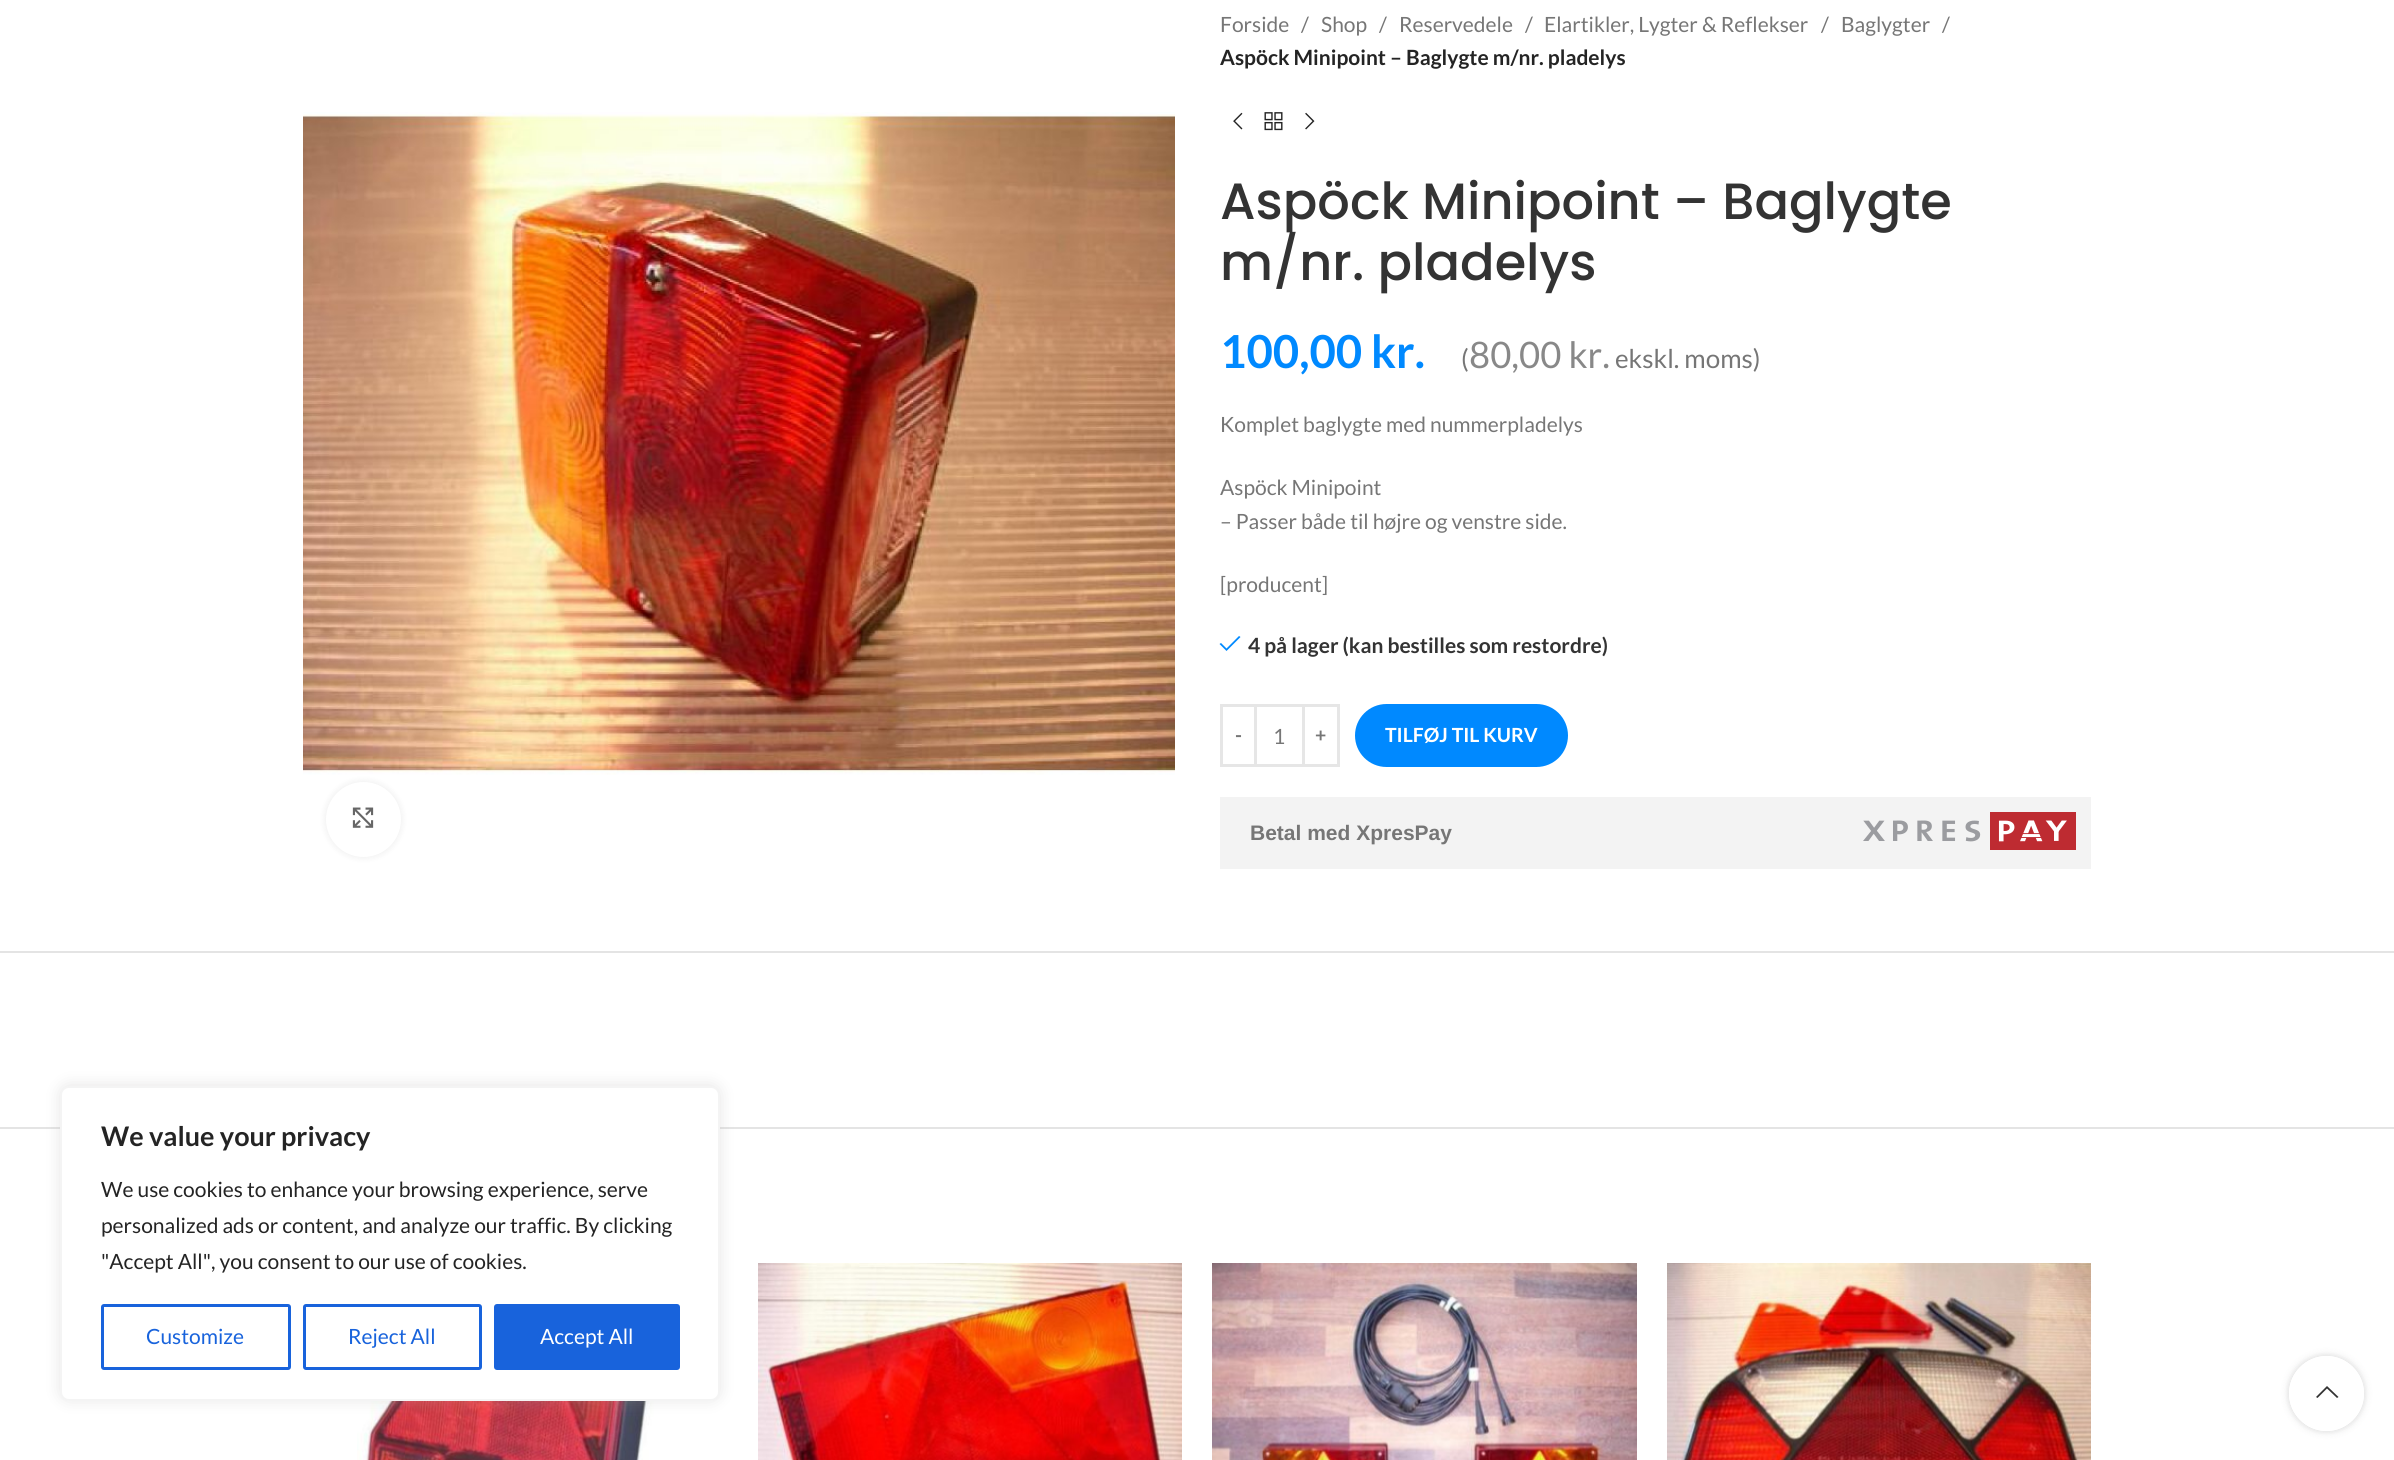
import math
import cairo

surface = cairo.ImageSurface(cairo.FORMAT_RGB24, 2394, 1460)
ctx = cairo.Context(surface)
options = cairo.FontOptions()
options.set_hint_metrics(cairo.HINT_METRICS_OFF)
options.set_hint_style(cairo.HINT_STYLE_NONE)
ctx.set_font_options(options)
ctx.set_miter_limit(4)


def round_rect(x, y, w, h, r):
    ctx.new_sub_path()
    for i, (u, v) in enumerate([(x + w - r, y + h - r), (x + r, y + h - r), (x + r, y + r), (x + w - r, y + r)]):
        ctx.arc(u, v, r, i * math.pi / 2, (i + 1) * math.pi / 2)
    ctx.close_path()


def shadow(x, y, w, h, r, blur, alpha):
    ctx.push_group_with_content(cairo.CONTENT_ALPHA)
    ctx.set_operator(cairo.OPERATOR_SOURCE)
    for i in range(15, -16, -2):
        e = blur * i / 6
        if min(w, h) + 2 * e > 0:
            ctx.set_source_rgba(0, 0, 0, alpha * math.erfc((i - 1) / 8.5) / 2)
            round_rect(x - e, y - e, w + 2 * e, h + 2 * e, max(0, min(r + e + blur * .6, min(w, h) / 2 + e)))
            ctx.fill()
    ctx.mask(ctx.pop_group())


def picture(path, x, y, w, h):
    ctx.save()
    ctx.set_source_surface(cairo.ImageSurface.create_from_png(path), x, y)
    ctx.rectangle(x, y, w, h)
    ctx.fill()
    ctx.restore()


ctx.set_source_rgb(1, 1, 1)
ctx.paint()
picture("img1.png", 303, 112, 872, 663)
ctx.set_source_rgb(0, 0, 0)
shadow(326, 782, 75, 75, 37.5, 4, 0.08)
ctx.set_source_rgb(1, 1, 1)
ctx.arc(363.5, 819.5, 37.5, 0, 2 * math.pi)
ctx.fill()
picture("img2.png", 352, 807, 22, 21)
ctx.select_font_face("Lato")
ctx.set_font_size(21)
ctx.set_source_rgb(0.463, 0.463, 0.463)
ctx.move_to(1220, 32)
ctx.show_text("Forside")
ctx.move_to(1301, 32)
ctx.show_text("/")
ctx.move_to(1321, 32)
ctx.show_text("Shop")
ctx.move_to(1379, 32)
ctx.show_text("/")
ctx.move_to(1399, 32)
ctx.show_text("Reservedele")
ctx.move_to(1525, 32)
ctx.show_text("/")
ctx.move_to(1544, 32)
ctx.show_text("Elartikler, Lygter & Reflekser")
ctx.move_to(1821, 32)
ctx.show_text("/")
ctx.move_to(1841, 32)
ctx.show_text("Baglygter")
ctx.move_to(1942, 32)
ctx.show_text("/")
ctx.select_font_face("Lato", cairo.FONT_SLANT_NORMAL, cairo.FONT_WEIGHT_BOLD)
ctx.set_source_rgb(0.141, 0.141, 0.141)
ctx.move_to(1220, 65)
ctx.show_text("Aspöck Minipoint – Baglygte m/nr. pladelys")
picture("img3.png", 1233, 112, 10, 18)
picture("img4.png", 1264, 112, 19, 19)
picture("img5.png", 1305, 112, 10, 18)
ctx.select_font_face("Poppins Medium")
ctx.set_font_size(51)
ctx.set_source_rgb(0.2, 0.2, 0.2)
ctx.move_to(1220, 219)
ctx.show_text("Aspöck Minipoint – Baglygte")
ctx.move_to(1220, 280)
ctx.show_text("m/nr. pladelys")
ctx.select_font_face("Lato", cairo.FONT_SLANT_NORMAL, cairo.FONT_WEIGHT_BOLD)
ctx.set_font_size(45.5)
ctx.set_source_rgb(0, 0.537, 1)
ctx.move_to(1220, 368)
ctx.show_text("100,00 kr.")
ctx.select_font_face("Lato")
ctx.set_font_size(26)
ctx.set_source_rgb(0.463, 0.463, 0.463)
ctx.move_to(1461, 368)
ctx.show_text("(")
ctx.set_font_size(36.5)
ctx.set_source_rgb(0.533, 0.533, 0.533)
ctx.move_to(1469, 368)
ctx.show_text("80,00 kr.")
ctx.set_font_size(26)
ctx.set_source_rgb(0.463, 0.463, 0.463)
ctx.move_to(1615, 368)
ctx.show_text("ekskl. moms)")
ctx.set_font_size(21)
ctx.move_to(1220, 432)
ctx.show_text("Komplet baglygte med nummerpladelys")
ctx.move_to(1220, 495)
ctx.show_text("Aspöck Minipoint")
ctx.move_to(1220, 529)
ctx.show_text("– Passer både til højre og venstre side.")
ctx.move_to(1220, 592)
ctx.show_text("[producent]")
ctx.set_source_rgb(0, 0.537, 1)
ctx.new_path()
ctx.move_to(1240.5, 637)
ctx.line_to(1239, 636)
ctx.line_to(1226.5, 648.5)
ctx.line_to(1221, 643)
ctx.line_to(1219.5, 644)
ctx.line_to(1226.5, 651)
ctx.close_path()
ctx.fill()
ctx.select_font_face("Lato", cairo.FONT_SLANT_NORMAL, cairo.FONT_WEIGHT_BOLD)
ctx.set_source_rgb(0.2, 0.2, 0.2)
ctx.move_to(1248, 653)
ctx.show_text("4 på lager (kan bestilles som restordre)")
ctx.rectangle(1221.5, 705.5, 34, 60)
ctx.set_source_rgb(0.902, 0.902, 0.902)
ctx.set_line_width(3)
ctx.stroke()
ctx.set_font_size(19.5)
ctx.set_source_rgb(0.463, 0.463, 0.463)
ctx.move_to(1235, 742)
ctx.show_text("-")
ctx.set_source_rgb(0.902, 0.902, 0.902)
ctx.rectangle(1257, 704, 45, 3)
ctx.fill()
ctx.rectangle(1257, 764, 45, 3)
ctx.fill()
ctx.select_font_face("Lato")
ctx.set_font_size(21)
ctx.set_source_rgb(0.463, 0.463, 0.463)
ctx.move_to(1273, 744)
ctx.show_text("1")
ctx.rectangle(1303.5, 705.5, 35, 60)
ctx.set_source_rgb(0.902, 0.902, 0.902)
ctx.stroke()
ctx.select_font_face("Lato", cairo.FONT_SLANT_NORMAL, cairo.FONT_WEIGHT_BOLD)
ctx.set_font_size(19.5)
ctx.set_source_rgb(0.463, 0.463, 0.463)
ctx.move_to(1315, 742)
ctx.show_text("+")
ctx.set_source_rgb(0, 0.537, 1)
round_rect(1355, 704, 213, 63, 31.5)
ctx.fill()
ctx.set_source_rgb(1, 1, 1)
ctx.move_to(1385, 742)
ctx.show_text("TILFØJ TIL KURV")
ctx.set_source_rgb(0.953, 0.953, 0.953)
ctx.rectangle(1220, 797, 871, 72)
ctx.fill()
ctx.select_font_face("Liberation Sans", cairo.FONT_SLANT_NORMAL, cairo.FONT_WEIGHT_BOLD)
ctx.set_font_size(21)
ctx.set_source_rgb(0.463, 0.463, 0.463)
ctx.move_to(1250, 840)
ctx.show_text("Betal med XpresPay")
picture("img6.png", 1863, 812, 213, 38)
ctx.set_source_rgb(0.894, 0.894, 0.894)
ctx.rectangle(0, 951, 2394, 2)
ctx.fill()
ctx.rectangle(0, 1127, 2394, 2)
ctx.fill()
picture("img7.png", 357, 1401, 319, 59)
picture("img8.png", 758, 1263, 424, 197)
picture("img9.png", 1212, 1263, 425, 197)
picture("img10.png", 1667, 1263, 424, 197)
ctx.set_source_rgb(0.675, 0.671, 0.671)
shadow(60, 1085, 660, 315, 9, 7.5, 0.3)
ctx.set_source_rgb(1, 1, 1)
round_rect(61, 1087, 658, 313, 8)
ctx.fill_preserve()
ctx.set_source_rgb(0.957, 0.957, 0.957)
ctx.set_line_width(2)
ctx.stroke()
ctx.select_font_face("Lato", cairo.FONT_SLANT_NORMAL, cairo.FONT_WEIGHT_BOLD)
ctx.set_font_size(27)
ctx.set_source_rgb(0.141, 0.141, 0.141)
ctx.move_to(101, 1146)
ctx.show_text("We value your privacy")
ctx.select_font_face("Lato")
ctx.set_font_size(21)
ctx.move_to(101, 1197)
ctx.show_text("We use cookies to enhance your browsing experience, serve")
ctx.move_to(101, 1233)
ctx.show_text("personalized ads or content, and analyze our traffic. By clicking")
ctx.move_to(101, 1269)
ctx.show_text("\"Accept All\", you consent to our use of cookies.")
round_rect(102.5, 1305.5, 187, 63, 1.5)
ctx.set_source_rgb(0.094, 0.388, 0.863)
ctx.set_line_width(3)
ctx.stroke()
ctx.move_to(146, 1344)
ctx.show_text("Customize")
round_rect(304.5, 1305.5, 176, 63, 1.5)
ctx.stroke()
ctx.move_to(348, 1344)
ctx.show_text("Reject All")
round_rect(495.5, 1305.5, 183, 63, 1.5)
ctx.fill_preserve()
ctx.stroke()
ctx.set_source_rgb(1, 1, 1)
ctx.move_to(540, 1344)
ctx.show_text("Accept All")
ctx.save()
ctx.set_fill_rule(cairo.FILL_RULE_EVEN_ODD)
ctx.new_path()
ctx.move_to(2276, 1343)
ctx.line_to(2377, 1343)
ctx.line_to(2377, 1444)
ctx.line_to(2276, 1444)
ctx.close_path()
ctx.move_to(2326.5, 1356)
ctx.curve_to(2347, 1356, 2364, 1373, 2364, 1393.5)
ctx.curve_to(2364, 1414, 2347, 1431, 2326.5, 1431)
ctx.curve_to(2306, 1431, 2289, 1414, 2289, 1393.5)
ctx.curve_to(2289, 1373, 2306, 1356, 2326.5, 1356)
ctx.close_path()
ctx.clip()
ctx.set_source_rgb(0, 0, 0)
shadow(2289, 1356, 75, 75, 37.5, 4, 0.17)
ctx.restore()
ctx.set_source_rgba(1, 1, 1, 0.9)
ctx.arc(2326.5, 1393.5, 37.5, 0, 2 * math.pi)
ctx.fill()
ctx.set_source_rgb(0.2, 0.2, 0.2)
ctx.new_path()
ctx.move_to(2337, 1398)
ctx.line_to(2338.5, 1397)
ctx.line_to(2327, 1386)
ctx.line_to(2316, 1397)
ctx.line_to(2317.5, 1398)
ctx.line_to(2327, 1388.5)
ctx.close_path()
ctx.fill()
surface.write_to_png("page.png")
